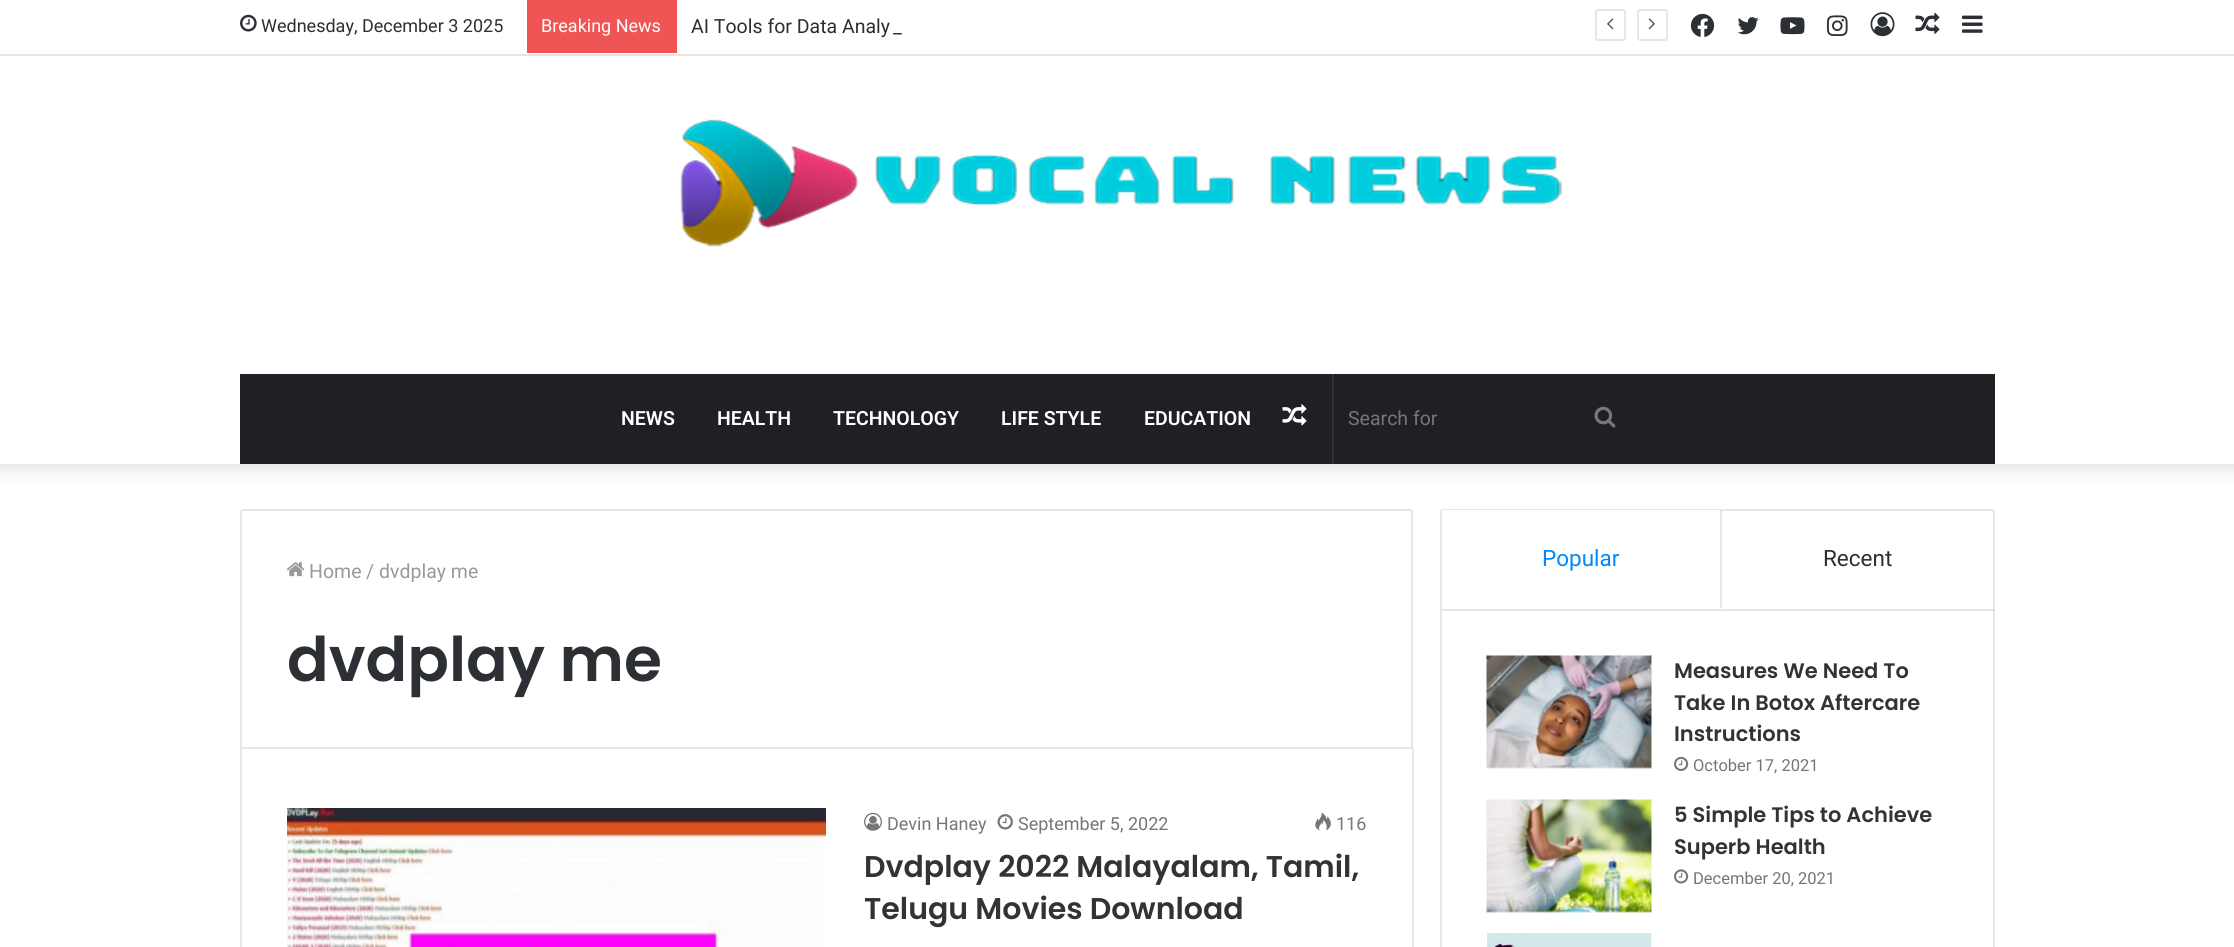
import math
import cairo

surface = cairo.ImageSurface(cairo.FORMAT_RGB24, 2234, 947)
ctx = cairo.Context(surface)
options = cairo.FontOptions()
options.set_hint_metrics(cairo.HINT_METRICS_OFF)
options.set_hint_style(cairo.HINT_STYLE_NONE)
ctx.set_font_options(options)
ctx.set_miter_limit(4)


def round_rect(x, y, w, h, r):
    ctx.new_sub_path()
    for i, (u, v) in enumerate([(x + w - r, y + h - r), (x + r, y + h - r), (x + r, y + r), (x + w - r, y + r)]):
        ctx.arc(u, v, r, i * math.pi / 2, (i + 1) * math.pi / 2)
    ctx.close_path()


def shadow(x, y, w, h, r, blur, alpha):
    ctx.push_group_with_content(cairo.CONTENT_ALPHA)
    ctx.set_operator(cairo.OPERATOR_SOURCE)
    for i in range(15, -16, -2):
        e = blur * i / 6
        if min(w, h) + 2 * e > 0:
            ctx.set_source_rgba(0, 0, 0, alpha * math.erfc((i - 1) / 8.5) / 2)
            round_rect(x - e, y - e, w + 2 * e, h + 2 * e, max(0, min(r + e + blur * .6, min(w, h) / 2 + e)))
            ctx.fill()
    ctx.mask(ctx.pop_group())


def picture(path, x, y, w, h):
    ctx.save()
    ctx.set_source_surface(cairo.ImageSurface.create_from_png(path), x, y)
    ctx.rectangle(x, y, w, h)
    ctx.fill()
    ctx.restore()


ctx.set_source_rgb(1, 1, 1)
ctx.paint()
ctx.set_source_rgb(0, 0, 0)
shadow(-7, -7, 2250, 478, 0, 7.5, 0.1)
ctx.set_source_rgb(1, 1, 1)
ctx.rectangle(0, 0, 2234, 464)
ctx.fill()
ctx.set_source_rgb(0.902, 0.902, 0.902)
ctx.rectangle(0, 54, 2234, 2)
ctx.fill()
picture("img1.png", 240, 14, 17, 18)
ctx.select_font_face("Roboto")
ctx.set_font_size(18)
ctx.set_source_rgb(0.173, 0.184, 0.204)
ctx.move_to(261, 32)
ctx.show_text("Wednesday, December 3 2025")
ctx.set_source_rgb(0.941, 0.333, 0.333)
ctx.rectangle(527, 0, 150, 53)
ctx.fill()
ctx.set_source_rgb(1, 1, 1)
ctx.move_to(541, 32)
ctx.show_text("Breaking News")
ctx.set_font_size(19.5)
ctx.set_source_rgb(0.173, 0.184, 0.204)
ctx.move_to(691, 33)
ctx.show_text("AI Tools for Data Analy")
ctx.move_to(893, 33)
ctx.show_text("_")
round_rect(1596, 10, 29, 30, 2)
ctx.set_source_rgb(0.902, 0.902, 0.902)
ctx.stroke()
picture("img2.png", 1607, 18, 7, 12)
round_rect(1638, 10, 29, 30, 2)
ctx.stroke()
picture("img3.png", 1648, 18, 7, 12)
picture("img4.png", 1690, 13, 25, 24)
picture("img5.png", 1737, 17, 22, 18)
picture("img6.png", 1780, 17, 25, 18)
picture("img7.png", 1827, 15, 21, 21)
picture("img8.png", 1870, 12, 25, 25)
picture("img9.png", 1915, 12, 25, 22)
picture("img10.png", 1962, 15, 21, 18)
picture("img11.png", 680, 119, 882, 128)
ctx.set_source_rgb(0.122, 0.125, 0.141)
ctx.rectangle(240, 374, 1755, 90)
ctx.fill()
ctx.select_font_face("Roboto SemiBold")
ctx.set_source_rgb(1, 1, 1)
ctx.move_to(621, 425)
ctx.show_text("NEWS")
ctx.move_to(717, 425)
ctx.show_text("HEALTH")
ctx.move_to(833, 425)
ctx.show_text("TECHNOLOGY")
ctx.move_to(1001, 425)
ctx.show_text("LIFE STYLE")
ctx.move_to(1144, 425)
ctx.show_text("EDUCATION")
picture("img12.png", 1282, 404, 25, 22)
ctx.set_source_rgb(0.184, 0.188, 0.2)
ctx.rectangle(1332, 374, 2, 90)
ctx.fill()
ctx.select_font_face("Roboto")
ctx.set_source_rgb(0.463, 0.463, 0.463)
ctx.move_to(1348, 425)
ctx.show_text("Search for")
picture("img13.png", 1594, 406, 22, 22)
ctx.new_path()
ctx.move_to(243, 510)
ctx.line_to(1410, 510)
ctx.curve_to(1411, 510, 1412, 511, 1412, 512)
ctx.line_to(1412, 748)
ctx.line_to(241, 748)
ctx.line_to(241, 512)
ctx.curve_to(241, 511, 242, 510, 243, 510)
ctx.close_path()
ctx.set_source_rgb(0.902, 0.902, 0.902)
ctx.stroke()
picture("img14.png", 286, 562, 19, 15)
ctx.set_source_rgb(0.6, 0.6, 0.6)
ctx.move_to(309, 578)
ctx.show_text("Home")
ctx.move_to(366, 578)
ctx.show_text("/")
ctx.move_to(379, 578)
ctx.show_text("dvdplay me")
ctx.select_font_face("Poppins SemiBold")
ctx.set_font_size(61.5)
ctx.set_source_rgb(0.173, 0.184, 0.204)
ctx.move_to(287, 681)
ctx.show_text("dvdplay me")
ctx.set_source_rgb(0.902, 0.902, 0.902)
ctx.rectangle(1412, 749, 2, 198)
ctx.fill()
ctx.rectangle(240, 749, 2, 198)
ctx.fill()
picture("img15.png", 287, 808, 539, 139)
picture("img16.png", 864, 812, 18, 19)
ctx.select_font_face("Roboto")
ctx.set_font_size(18)
ctx.set_source_rgb(0.463, 0.463, 0.463)
ctx.move_to(887, 830)
ctx.show_text("Devin Haney")
picture("img17.png", 997, 814, 16, 16)
ctx.move_to(1018, 830)
ctx.show_text("September 5, 2022")
picture("img18.png", 1315, 812, 16, 19)
ctx.move_to(1336, 830)
ctx.show_text("116")
ctx.select_font_face("Poppins SemiBold")
ctx.set_font_size(30)
ctx.set_source_rgb(0.2, 0.2, 0.2)
ctx.move_to(864, 877)
ctx.show_text("Dvdplay 2022 Malayalam, Tamil,")
ctx.move_to(864, 919)
ctx.show_text("Telugu Movies Download")
round_rect(1441, 510, 553, 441, 2)
ctx.set_source_rgb(0.902, 0.902, 0.902)
ctx.stroke()
ctx.set_source_rgba(0, 0, 0, 0.1)
ctx.rectangle(1442, 609, 552, 2)
ctx.fill()
ctx.set_source_rgb(1, 1, 1)
ctx.rectangle(1442, 510, 280, 2)
ctx.fill()
ctx.set_source_rgb(0.902, 0.902, 0.902)
ctx.new_path()
ctx.move_to(1722, 510)
ctx.line_to(1722, 609)
ctx.line_to(1720, 608)
ctx.line_to(1720, 510)
ctx.close_path()
ctx.fill()
ctx.select_font_face("Roboto")
ctx.set_font_size(22.5)
ctx.set_source_rgb(0, 0.533, 1)
ctx.move_to(1542, 566)
ctx.show_text("Popular")
ctx.set_source_rgb(0.173, 0.184, 0.204)
ctx.move_to(1823, 566)
ctx.show_text("Recent")
picture("img19.png", 1486, 655, 166, 114)
ctx.select_font_face("Poppins SemiBold")
ctx.set_font_size(21)
ctx.set_source_rgb(0.2, 0.2, 0.2)
ctx.move_to(1674, 678)
ctx.show_text("Measures We Need To")
ctx.move_to(1674, 710)
ctx.show_text("Take In Botox Aftercare")
ctx.move_to(1674, 741)
ctx.show_text("Instructions")
picture("img20.png", 1674, 756, 15, 15)
ctx.select_font_face("Roboto")
ctx.set_font_size(16.5)
ctx.set_source_rgb(0.463, 0.463, 0.463)
ctx.move_to(1693, 771)
ctx.show_text("October 17, 2021")
picture("img21.png", 1486, 799, 166, 114)
ctx.select_font_face("Poppins SemiBold")
ctx.set_font_size(21)
ctx.set_source_rgb(0.2, 0.2, 0.2)
ctx.move_to(1674, 822)
ctx.show_text("5 Simple Tips to Achieve")
ctx.move_to(1674, 854)
ctx.show_text("Superb Health")
picture("img22.png", 1674, 869, 15, 15)
ctx.select_font_face("Roboto")
ctx.set_font_size(16.5)
ctx.set_source_rgb(0.463, 0.463, 0.463)
ctx.move_to(1693, 884)
ctx.show_text("December 20, 2021")
picture("img23.png", 1487, 933, 165, 14)
surface.write_to_png("page.png")
